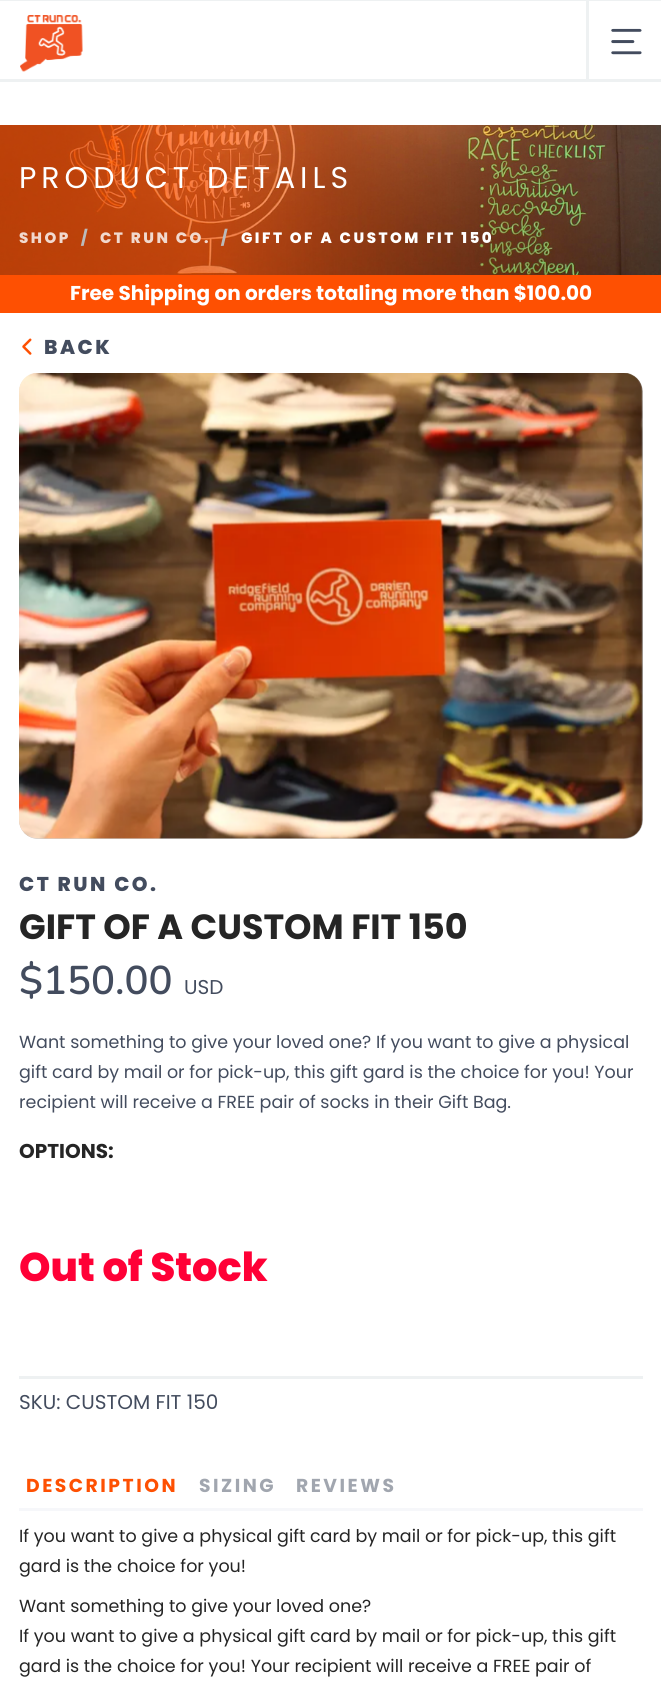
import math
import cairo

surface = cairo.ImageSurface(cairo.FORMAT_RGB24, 661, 1696)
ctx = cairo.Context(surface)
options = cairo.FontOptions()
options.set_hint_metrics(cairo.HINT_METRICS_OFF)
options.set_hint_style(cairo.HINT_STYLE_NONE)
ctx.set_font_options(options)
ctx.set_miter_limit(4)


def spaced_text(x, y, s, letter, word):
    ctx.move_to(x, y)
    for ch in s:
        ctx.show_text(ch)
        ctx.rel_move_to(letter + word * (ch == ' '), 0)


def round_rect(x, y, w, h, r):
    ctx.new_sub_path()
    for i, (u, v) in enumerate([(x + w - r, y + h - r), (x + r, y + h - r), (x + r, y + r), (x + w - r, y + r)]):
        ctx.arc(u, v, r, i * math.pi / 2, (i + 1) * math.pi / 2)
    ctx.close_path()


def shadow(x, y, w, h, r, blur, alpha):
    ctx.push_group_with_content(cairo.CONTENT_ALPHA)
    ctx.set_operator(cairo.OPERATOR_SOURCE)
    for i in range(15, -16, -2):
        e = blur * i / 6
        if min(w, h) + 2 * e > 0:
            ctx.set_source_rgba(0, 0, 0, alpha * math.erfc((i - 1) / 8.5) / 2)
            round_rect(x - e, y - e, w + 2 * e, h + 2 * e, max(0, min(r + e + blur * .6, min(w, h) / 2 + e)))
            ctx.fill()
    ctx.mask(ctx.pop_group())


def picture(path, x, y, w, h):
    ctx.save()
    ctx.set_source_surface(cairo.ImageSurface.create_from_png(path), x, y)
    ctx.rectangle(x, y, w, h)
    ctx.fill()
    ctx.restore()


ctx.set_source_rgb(1, 1, 1)
ctx.paint()
ctx.set_source_rgb(0.933, 0.945, 0.949)
ctx.rectangle(0, 0, 661, 1)
ctx.fill()
ctx.rectangle(0, 79, 661, 3)
ctx.fill()
picture("img1.png", 20, 15, 63, 57)
ctx.rectangle(586, 1, 3, 78)
ctx.fill()
picture("img2.png", 611, 28, 31, 27)
picture("img3.png", 0, 125, 661, 150)
ctx.select_font_face("Poppins")
ctx.set_font_size(30)
ctx.set_source_rgb(1, 1, 1)
spaced_text(19, 188, "PRODUCT DETAILS", 5, 0)
ctx.select_font_face("Poppins ExtraBold")
ctx.set_font_size(15)
ctx.set_source_rgb(0.945, 0.851, 0.808)
spaced_text(19, 243, "SHOP", 2.5, 0)
ctx.set_source_rgb(0.733, 0.733, 0.733)
spaced_text(81, 243, "/", 2.5, 0)
ctx.set_source_rgb(0.945, 0.851, 0.808)
spaced_text(100, 243, "CT RUN CO.", 2.5, 0)
ctx.set_source_rgb(0.733, 0.733, 0.733)
spaced_text(221, 243, "/", 2.5, 0)
ctx.set_source_rgb(1, 1, 1)
spaced_text(241, 243, "GIFT OF A CUSTOM FIT 150", 2.5, 0)
picture("img5.png", 22, 338, 10, 17)
ctx.save()
round_rect(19, 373, 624, 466, 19)
ctx.clip()
ctx.set_source_rgb(0, 0, 0)
shadow(-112, 385, 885, 466, 19, 31, 0.3)
ctx.restore()
ctx.set_source_rgb(0.996, 0.314, 0.008)
ctx.rectangle(0, 275, 661, 38)
ctx.fill()
ctx.select_font_face("Poppins", cairo.FONT_SLANT_NORMAL, cairo.FONT_WEIGHT_BOLD)
ctx.set_font_size(20)
ctx.set_source_rgb(1, 1, 1)
ctx.move_to(70, 300)
ctx.show_text("Free Shipping on orders totaling more than $100.00")
picture("img4.png", 19, 373, 624, 466)
ctx.select_font_face("Poppins ExtraBold")
ctx.set_source_rgb(0.263, 0.298, 0.369)
spaced_text(44, 354, "BACK", 2.5, 0)
spaced_text(19, 891, "CT RUN CO.", 2.5, 0)
ctx.select_font_face("Poppins", cairo.FONT_SLANT_NORMAL, cairo.FONT_WEIGHT_BOLD)
ctx.set_font_size(35)
ctx.set_source_rgb(0.145, 0.145, 0.145)
ctx.move_to(19, 939)
ctx.show_text("GIFT OF A CUSTOM FIT 150")
ctx.select_font_face("Nunito SemiBold")
ctx.set_font_size(40)
ctx.set_source_rgb(0.263, 0.298, 0.369)
ctx.move_to(19, 994)
ctx.show_text("$150.00")
ctx.select_font_face("Poppins")
ctx.set_font_size(20)
ctx.move_to(184, 994)
ctx.show_text("USD")
ctx.set_font_size(17.5)
ctx.move_to(19, 1048)
ctx.show_text("Want something to give your loved one? If you want to give a physical")
ctx.move_to(19, 1078)
ctx.show_text("gift card by mail or for pick-up, this gift gard is the choice for you! Your")
ctx.move_to(19, 1108)
ctx.show_text("recipient will receive a FREE pair of socks in their Gift Bag.")
ctx.select_font_face("Poppins", cairo.FONT_SLANT_NORMAL, cairo.FONT_WEIGHT_BOLD)
ctx.set_font_size(20)
ctx.set_source_rgb(0.145, 0.145, 0.145)
ctx.move_to(19, 1158)
ctx.show_text("OPTIONS:")
ctx.select_font_face("Poppins ExtraBold")
ctx.set_font_size(40)
ctx.set_source_rgb(1, 0, 0.212)
ctx.move_to(19, 1281)
ctx.show_text("Out of Stock")
ctx.set_source_rgb(0.933, 0.945, 0.949)
ctx.rectangle(19, 1376, 624, 3)
ctx.fill()
ctx.select_font_face("Poppins")
ctx.set_font_size(20)
ctx.set_source_rgb(0.263, 0.298, 0.369)
ctx.move_to(19, 1409)
ctx.show_text("SKU: CUSTOM FIT 150")
ctx.set_source_rgb(0.961, 0.965, 0.98)
ctx.rectangle(19, 1508, 624, 3)
ctx.fill()
ctx.select_font_face("Poppins", cairo.FONT_SLANT_NORMAL, cairo.FONT_WEIGHT_BOLD)
ctx.set_font_size(18.75)
ctx.set_source_rgb(0.996, 0.314, 0.008)
spaced_text(26, 1492, "DESCRIPTION", 2.5, 0)
ctx.set_source_rgb(0.631, 0.651, 0.686)
spaced_text(199, 1492, "SIZING", 2.5, 0)
spaced_text(296, 1492, "REVIEWS", 2.5, 0)
ctx.select_font_face("Poppins")
ctx.set_font_size(17.5)
ctx.set_source_rgb(0.145, 0.145, 0.145)
ctx.move_to(19, 1542)
ctx.show_text("If you want to give a physical gift card by mail or for pick-up, this gift")
ctx.move_to(19, 1572)
ctx.show_text("gard is the choice for you!")
ctx.move_to(19, 1612)
ctx.show_text("Want something to give your loved one?")
ctx.move_to(19, 1642)
ctx.show_text("If you want to give a physical gift card by mail or for pick-up, this gift")
ctx.move_to(19, 1672)
ctx.show_text("gard is the choice for you! Your recipient will receive a FREE pair of")
surface.write_to_png("page.png")
